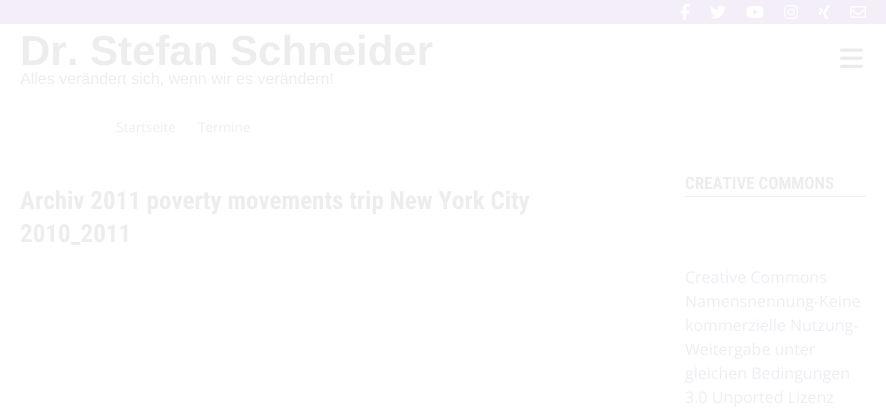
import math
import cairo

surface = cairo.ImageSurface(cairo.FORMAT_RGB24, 886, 420)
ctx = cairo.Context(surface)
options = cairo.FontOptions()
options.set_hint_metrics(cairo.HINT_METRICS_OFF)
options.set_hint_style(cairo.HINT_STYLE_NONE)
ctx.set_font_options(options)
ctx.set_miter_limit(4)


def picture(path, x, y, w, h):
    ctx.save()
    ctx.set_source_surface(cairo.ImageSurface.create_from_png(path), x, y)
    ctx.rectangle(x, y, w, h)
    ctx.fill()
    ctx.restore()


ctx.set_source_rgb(1, 1, 1)
ctx.paint()
ctx.set_source_rgb(0.953, 0.933, 0.965)
ctx.rectangle(0, 0, 886, 24)
ctx.fill()
picture("img1.png", 680, 4, 10, 16)
picture("img2.png", 710, 5, 16, 14)
picture("img3.png", 746, 6, 18, 12)
picture("img4.png", 784, 5, 14, 14)
picture("img5.png", 818, 5, 12, 14)
picture("img6.png", 850, 6, 16, 12)
ctx.select_font_face("Liberation Sans", cairo.FONT_SLANT_NORMAL, cairo.FONT_WEIGHT_BOLD)
ctx.set_font_size(42)
ctx.set_source_rgb(0.929, 0.929, 0.929)
ctx.move_to(20, 65)
ctx.show_text("Dr. Stefan Schneider")
ctx.select_font_face("Liberation Sans")
ctx.set_font_size(16)
ctx.move_to(20, 84)
ctx.show_text("Alles verändert sich, wenn wir es verändern!")
picture("img7.png", 840, 48, 23, 20)
ctx.select_font_face("Open Sans")
ctx.set_font_size(13.5)
ctx.set_source_rgb(0.929, 0.929, 0.961)
ctx.move_to(116, 132)
ctx.show_text("Startseite")
ctx.move_to(198, 132)
ctx.show_text("Termine")
ctx.select_font_face("Roboto Condensed", cairo.FONT_SLANT_NORMAL, cairo.FONT_WEIGHT_BOLD)
ctx.set_font_size(25)
ctx.set_source_rgb(0.929, 0.929, 0.929)
ctx.move_to(20, 209)
ctx.show_text("Archiv 2011 poverty movements trip New York City")
ctx.move_to(20, 242)
ctx.show_text("2010_2011")
ctx.set_source_rgb(0.945, 0.945, 0.953)
ctx.rectangle(685, 196, 181, 1)
ctx.fill()
ctx.set_font_size(17)
ctx.set_source_rgb(0.929, 0.929, 0.929)
ctx.move_to(685, 189)
ctx.show_text("CREATIVE COMMONS")
ctx.select_font_face("Open Sans")
ctx.set_font_size(16)
ctx.set_source_rgb(0.929, 0.929, 0.961)
ctx.move_to(685, 283)
ctx.show_text("Creative Commons")
ctx.move_to(685, 307)
ctx.show_text("Namensnennung-Keine")
ctx.move_to(685, 331)
ctx.show_text("kommerzielle Nutzung-")
ctx.move_to(685, 355)
ctx.show_text("Weitergabe unter")
ctx.move_to(685, 379)
ctx.show_text("gleichen Bedingungen")
ctx.move_to(685, 403)
ctx.show_text("3.0 Unported Lizenz")
surface.write_to_png("page.png")
